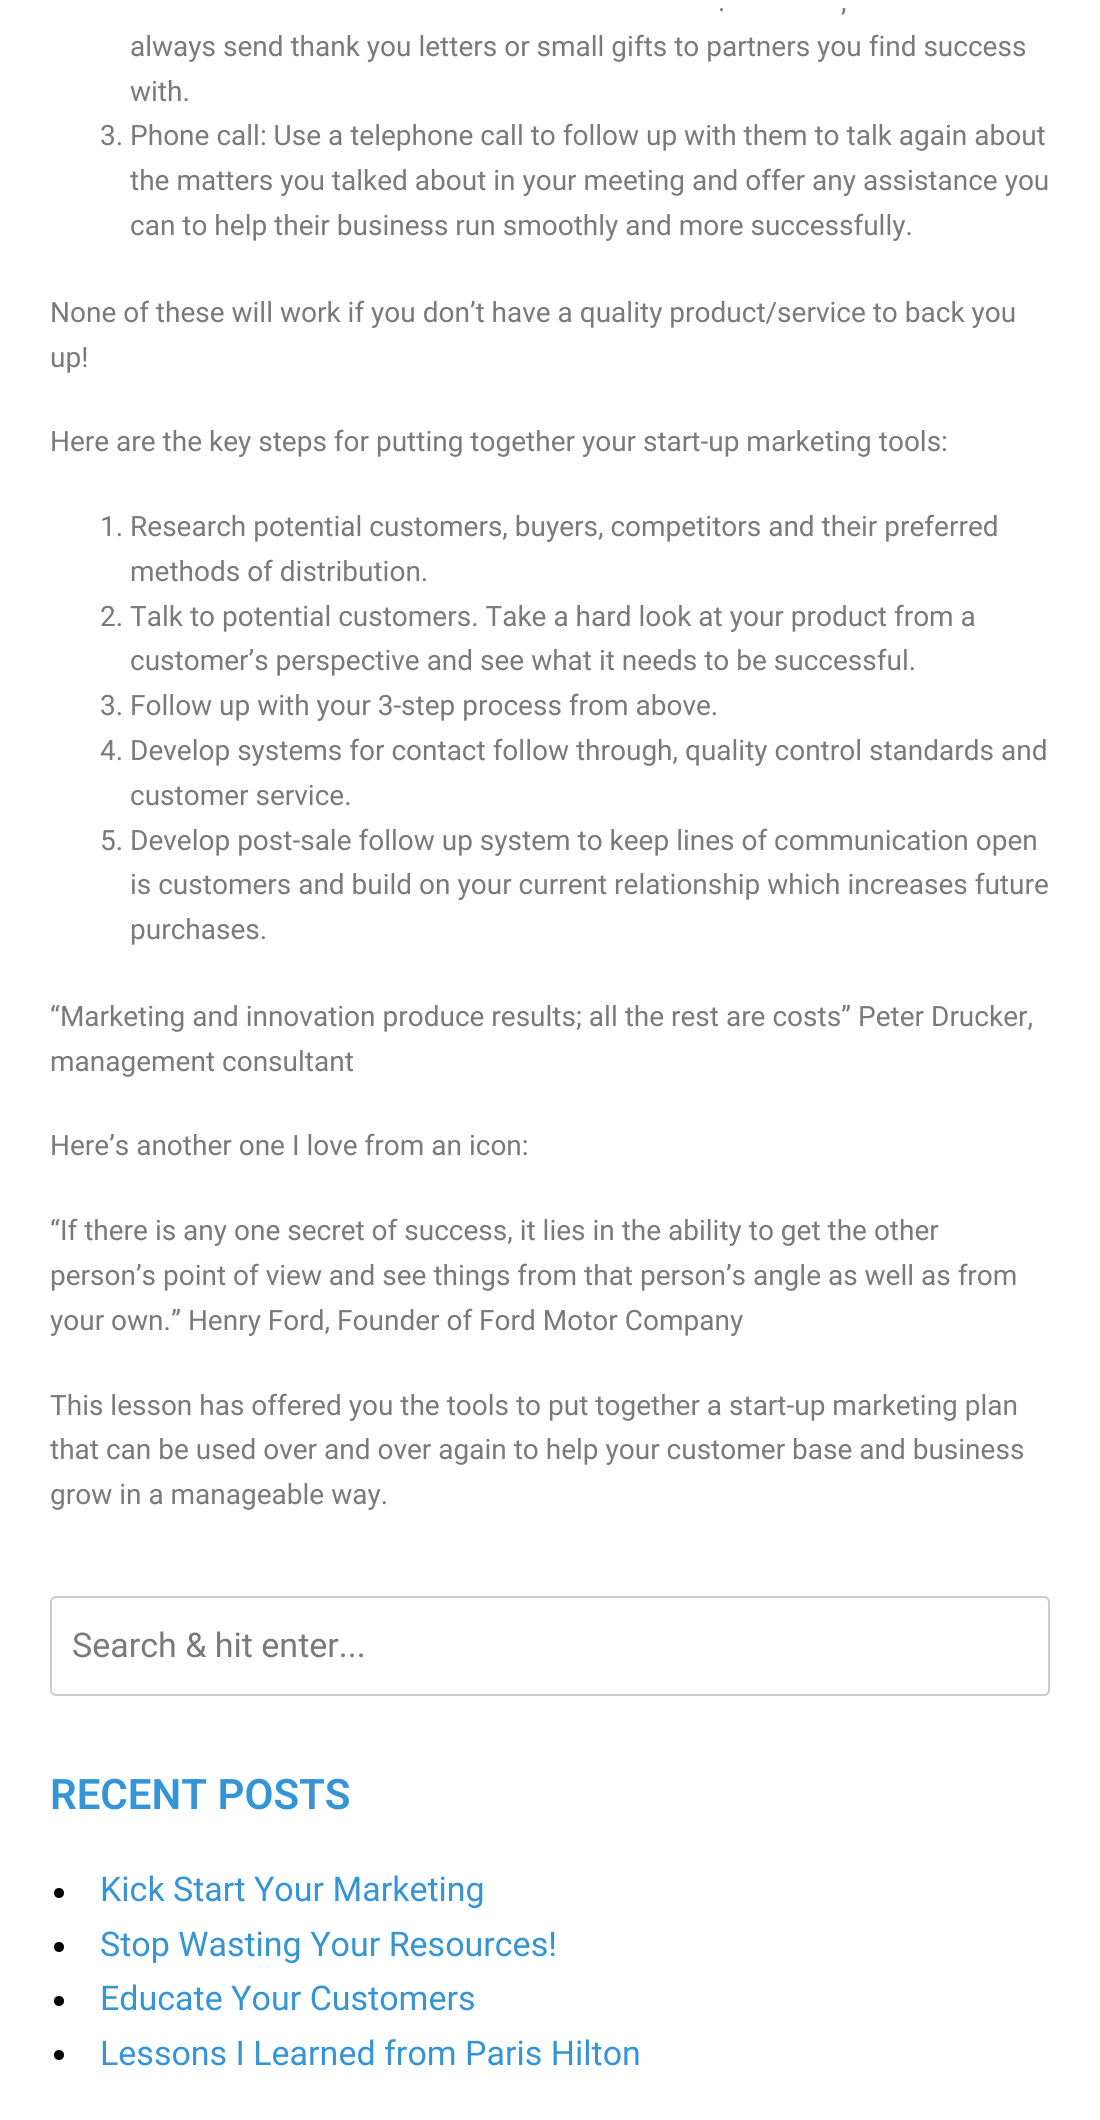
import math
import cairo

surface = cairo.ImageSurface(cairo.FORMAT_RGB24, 1100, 2120)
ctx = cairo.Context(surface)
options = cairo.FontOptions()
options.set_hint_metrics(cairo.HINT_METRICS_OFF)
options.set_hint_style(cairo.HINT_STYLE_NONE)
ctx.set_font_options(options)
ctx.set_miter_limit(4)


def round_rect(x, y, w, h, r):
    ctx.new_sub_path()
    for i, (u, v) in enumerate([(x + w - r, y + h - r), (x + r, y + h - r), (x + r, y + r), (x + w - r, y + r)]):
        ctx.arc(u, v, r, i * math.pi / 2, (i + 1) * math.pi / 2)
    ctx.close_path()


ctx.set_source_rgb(1, 1, 1)
ctx.paint()
ctx.select_font_face("Roboto")
ctx.set_font_size(28)
ctx.set_source_rgb(0.478, 0.478, 0.478)
ctx.move_to(718, 11)
ctx.show_text(".")
ctx.move_to(841, 11)
ctx.show_text(",")
ctx.move_to(130, 56)
ctx.show_text("always send thank you letters or small gifts to partners you find success")
ctx.move_to(130, 101)
ctx.show_text("with.")
ctx.move_to(100, 145)
ctx.show_text("3. Phone call: Use a telephone call to follow up with them to talk again about")
ctx.move_to(130, 190)
ctx.show_text("the matters you talked about in your meeting and offer any assistance you")
ctx.move_to(130, 235)
ctx.show_text("can to help their business run smoothly and more successfully.")
ctx.move_to(50, 322)
ctx.show_text("None of these will work if you don’t have a quality product/service to back you")
ctx.move_to(50, 367)
ctx.show_text("up!")
ctx.move_to(50, 451)
ctx.show_text("Here are the key steps for putting together your start-up marketing tools:")
ctx.move_to(100, 536)
ctx.show_text("1. Research potential customers, buyers, competitors and their preferred")
ctx.move_to(130, 581)
ctx.show_text("methods of distribution.")
ctx.move_to(100, 626)
ctx.show_text("2. Talk to potential customers. Take a hard look at your product from a")
ctx.move_to(130, 670)
ctx.show_text("customer’s perspective and see what it needs to be successful.")
ctx.move_to(100, 715)
ctx.show_text("3. Follow up with your 3-step process from above.")
ctx.move_to(100, 760)
ctx.show_text("4. Develop systems for contact follow through, quality control standards and")
ctx.move_to(130, 805)
ctx.show_text("customer service.")
ctx.move_to(100, 850)
ctx.show_text("5. Develop post-sale follow up system to keep lines of communication open")
ctx.move_to(130, 894)
ctx.show_text("is customers and build on your current relationship which increases future")
ctx.move_to(130, 939)
ctx.show_text("purchases.")
ctx.move_to(50, 1026)
ctx.show_text("“Marketing and innovation produce results; all the rest are costs” Peter Drucker,")
ctx.move_to(50, 1071)
ctx.show_text("management consultant")
ctx.move_to(50, 1155)
ctx.show_text("Here’s another one I love from an icon:")
ctx.move_to(50, 1240)
ctx.show_text("“If there is any one secret of success, it lies in the ability to get the other")
ctx.move_to(50, 1285)
ctx.show_text("person’s point of view and see things from that person’s angle as well as from")
ctx.move_to(50, 1330)
ctx.show_text("your own.” Henry Ford, Founder of Ford Motor Company")
ctx.move_to(50, 1415)
ctx.show_text("This lesson has offered you the tools to put together a start-up marketing plan")
ctx.move_to(50, 1459)
ctx.show_text("that can be used over and over again to help your customer base and business")
ctx.move_to(50, 1504)
ctx.show_text("grow in a manageable way.")
round_rect(51, 1597, 998, 98, 5)
ctx.set_source_rgb(0.8, 0.8, 0.8)
ctx.stroke()
ctx.set_font_size(34)
ctx.set_source_rgb(0.478, 0.478, 0.478)
ctx.move_to(72, 1657)
ctx.show_text("Search & hit enter...")
ctx.select_font_face("Roboto SemiBold")
ctx.set_font_size(42)
ctx.set_source_rgb(0.204, 0.58, 0.839)
ctx.move_to(50, 1809)
ctx.show_text("RECENT POSTS")
ctx.set_source_rgb(0, 0, 0)
ctx.new_path()
ctx.arc(59, 1893, 5, 0, 2 * math.pi)
ctx.fill()
ctx.select_font_face("Roboto")
ctx.set_font_size(34)
ctx.set_source_rgb(0.204, 0.58, 0.839)
ctx.move_to(100, 1901)
ctx.show_text("Kick Start Your Marketing")
ctx.set_source_rgb(0, 0, 0)
ctx.new_path()
ctx.arc(59, 1947, 5, 0, 2 * math.pi)
ctx.fill()
ctx.set_source_rgb(0.204, 0.58, 0.839)
ctx.move_to(100, 1956)
ctx.show_text("Stop Wasting Your Resources!")
ctx.set_source_rgb(0, 0, 0)
ctx.new_path()
ctx.arc(59, 2001, 5, 0, 2 * math.pi)
ctx.fill()
ctx.set_source_rgb(0.204, 0.58, 0.839)
ctx.move_to(100, 2010)
ctx.show_text("Educate Your Customers")
ctx.set_source_rgb(0, 0, 0)
ctx.new_path()
ctx.arc(59, 2055, 5, 0, 2 * math.pi)
ctx.fill()
ctx.set_source_rgb(0.204, 0.58, 0.839)
ctx.move_to(100, 2065)
ctx.show_text("Lessons I Learned from Paris Hilton")
surface.write_to_png("page.png")
